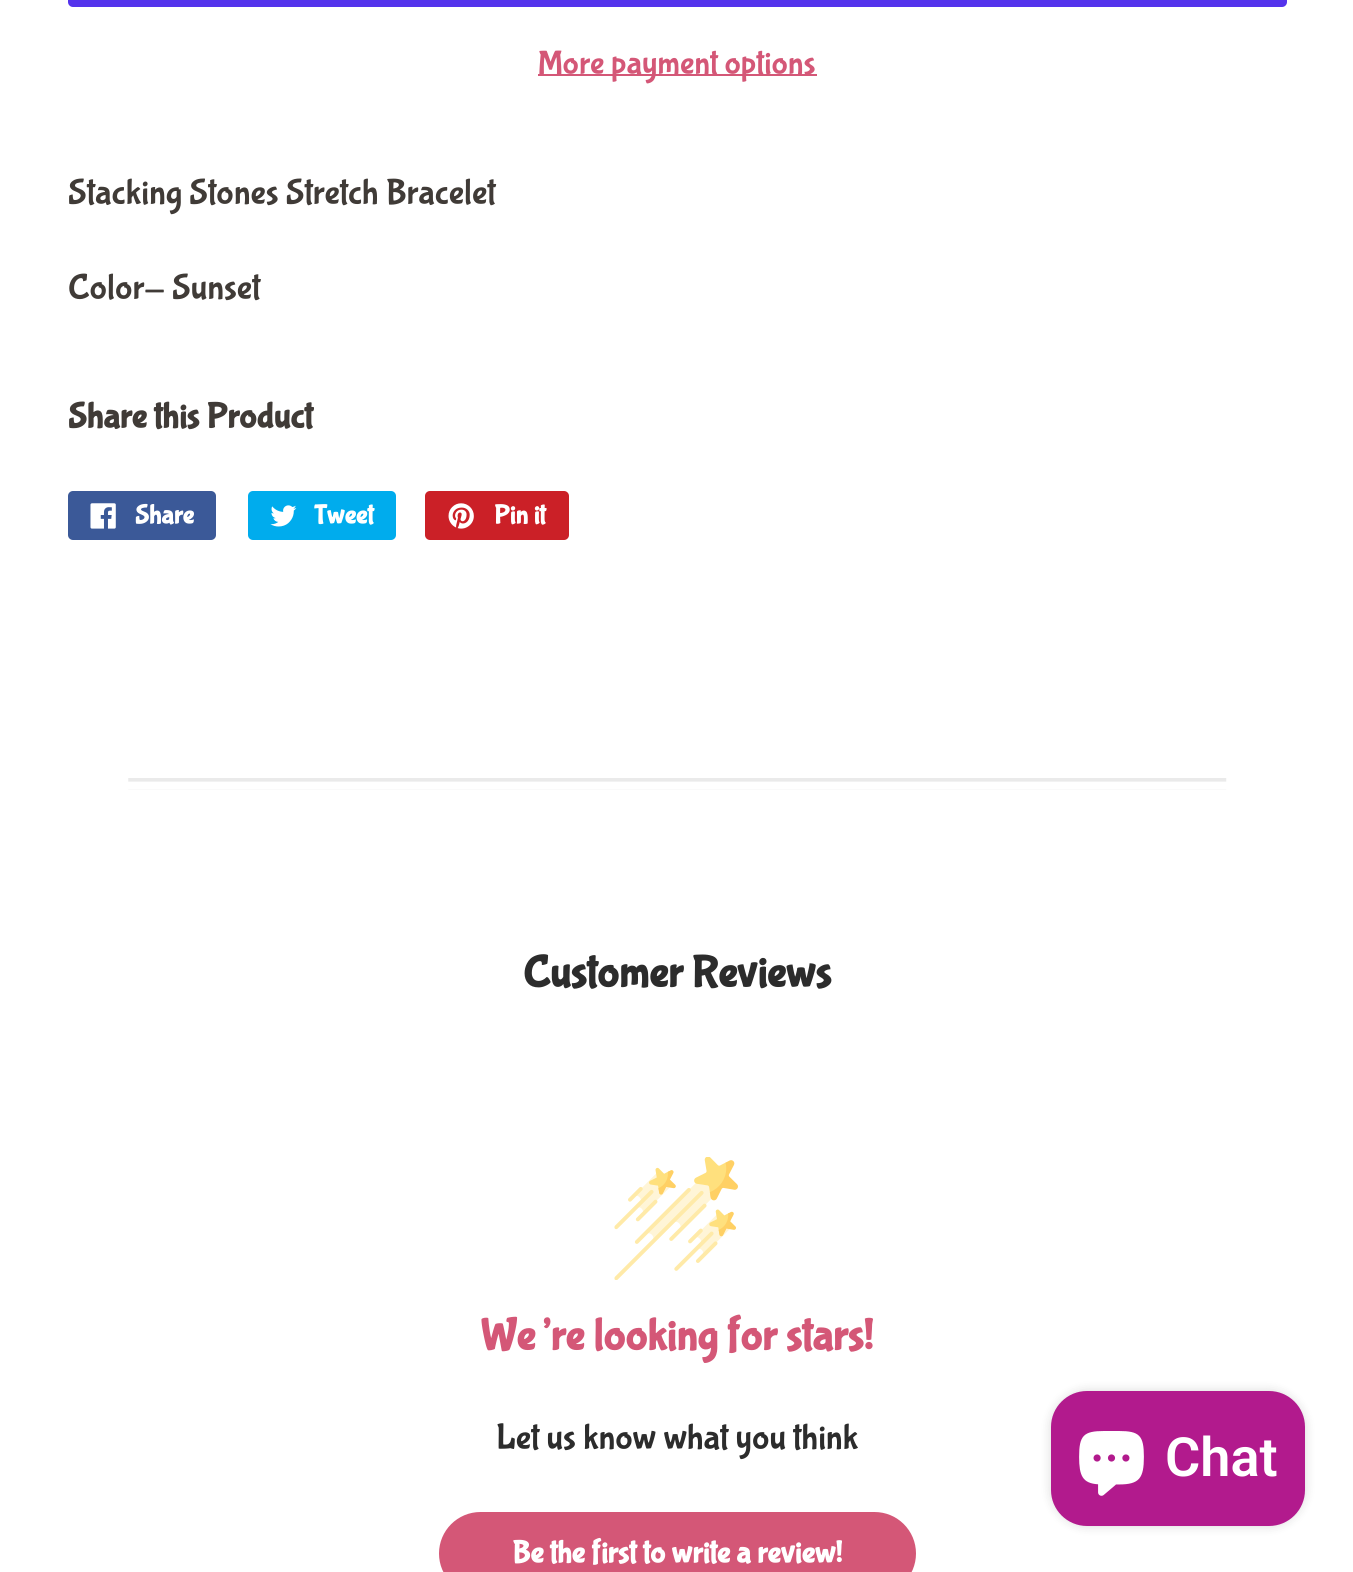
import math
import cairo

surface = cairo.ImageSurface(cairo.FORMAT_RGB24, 1353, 1572)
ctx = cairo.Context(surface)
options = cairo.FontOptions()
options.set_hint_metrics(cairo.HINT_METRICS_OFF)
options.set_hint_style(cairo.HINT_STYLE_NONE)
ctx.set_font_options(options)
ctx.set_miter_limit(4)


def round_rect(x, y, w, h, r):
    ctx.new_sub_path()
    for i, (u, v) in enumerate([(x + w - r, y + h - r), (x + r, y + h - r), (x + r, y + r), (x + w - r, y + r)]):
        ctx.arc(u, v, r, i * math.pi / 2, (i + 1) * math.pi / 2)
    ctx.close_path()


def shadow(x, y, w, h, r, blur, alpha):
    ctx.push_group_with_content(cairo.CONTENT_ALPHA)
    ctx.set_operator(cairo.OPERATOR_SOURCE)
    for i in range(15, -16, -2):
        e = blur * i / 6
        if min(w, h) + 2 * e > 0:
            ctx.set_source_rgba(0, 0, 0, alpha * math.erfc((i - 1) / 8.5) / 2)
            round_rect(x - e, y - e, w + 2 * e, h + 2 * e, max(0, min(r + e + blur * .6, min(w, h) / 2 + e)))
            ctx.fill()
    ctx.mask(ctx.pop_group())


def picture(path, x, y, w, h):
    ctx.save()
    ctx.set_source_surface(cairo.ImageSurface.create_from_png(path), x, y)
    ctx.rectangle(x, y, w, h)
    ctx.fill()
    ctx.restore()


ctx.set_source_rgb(1, 1, 1)
ctx.paint()
ctx.set_source_rgb(0.329, 0.2, 0.922)
round_rect(68, -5, 1219, 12, 5)
ctx.fill()
ctx.set_source_rgb(0.831, 0.341, 0.467)
ctx.rectangle(538, 74, 279, 2)
ctx.fill()
ctx.select_font_face("Bubblegum Sans")
ctx.set_font_size(33.75)
ctx.move_to(538, 73)
ctx.show_text("More payment options")
ctx.set_font_size(36)
ctx.set_source_rgb(0.251, 0.231, 0.216)
ctx.move_to(68, 203)
ctx.show_text("Stacking Stones Stretch Bracelet")
ctx.move_to(68, 298)
ctx.show_text("Color- Sunset")
ctx.select_font_face("Bubblegum Sans", cairo.FONT_SLANT_NORMAL, cairo.FONT_WEIGHT_BOLD)
ctx.move_to(68, 427)
ctx.show_text("Share this Product")
ctx.set_source_rgb(0.231, 0.349, 0.596)
round_rect(68, 491, 148, 49, 5)
ctx.fill()
picture("img1.png", 90, 503, 26, 26)
ctx.set_font_size(27)
ctx.set_source_rgb(1, 1, 1)
ctx.move_to(135, 523)
ctx.show_text("Share")
ctx.set_source_rgb(0, 0.675, 0.929)
round_rect(248, 491, 148, 49, 5)
ctx.fill()
picture("img2.png", 270, 505, 27, 22)
ctx.set_source_rgb(1, 1, 1)
ctx.move_to(314, 523)
ctx.show_text("Tweet")
ctx.set_source_rgb(0.796, 0.125, 0.153)
round_rect(425, 491, 144, 49, 5)
ctx.fill()
picture("img3.png", 448, 503, 26, 26)
ctx.set_source_rgb(1, 1, 1)
ctx.move_to(494, 523)
ctx.show_text("Pin it")
picture("img4.png", 128, 778, 1099, 12)
ctx.set_font_size(45)
ctx.set_source_rgb(0.173, 0.173, 0.173)
ctx.move_to(523, 986)
ctx.show_text("Customer Reviews")
picture("img5.png", 614, 1157, 124, 123)
ctx.set_source_rgb(0.831, 0.341, 0.467)
ctx.move_to(481, 1349)
ctx.show_text("We’re looking for stars!")
ctx.select_font_face("Bubblegum Sans")
ctx.set_font_size(36)
ctx.set_source_rgb(0.173, 0.173, 0.173)
ctx.move_to(496, 1448)
ctx.show_text("Let us know what you think")
ctx.set_source_rgb(0.831, 0.341, 0.467)
round_rect(439, 1512, 477, 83, 41.5)
ctx.fill()
ctx.select_font_face("Bubblegum Sans", cairo.FONT_SLANT_NORMAL, cairo.FONT_WEIGHT_BOLD)
ctx.set_font_size(31.5)
ctx.set_source_rgb(1, 1, 1)
ctx.move_to(512, 1562)
ctx.show_text("Be the first to write a review!")
ctx.set_source_rgb(0, 0, 0)
shadow(1051, 1391, 254, 135, 36, 5.5, 0.15)
ctx.set_source_rgb(0.698, 0.102, 0.553)
round_rect(1051, 1391, 254, 135, 36)
ctx.fill()
picture("img6.png", 1079, 1431, 65, 65)
ctx.select_font_face("Roboto SemiBold")
ctx.set_font_size(54)
ctx.set_source_rgb(1, 1, 1)
ctx.move_to(1165, 1476)
ctx.show_text("Chat")
surface.write_to_png("page.png")
